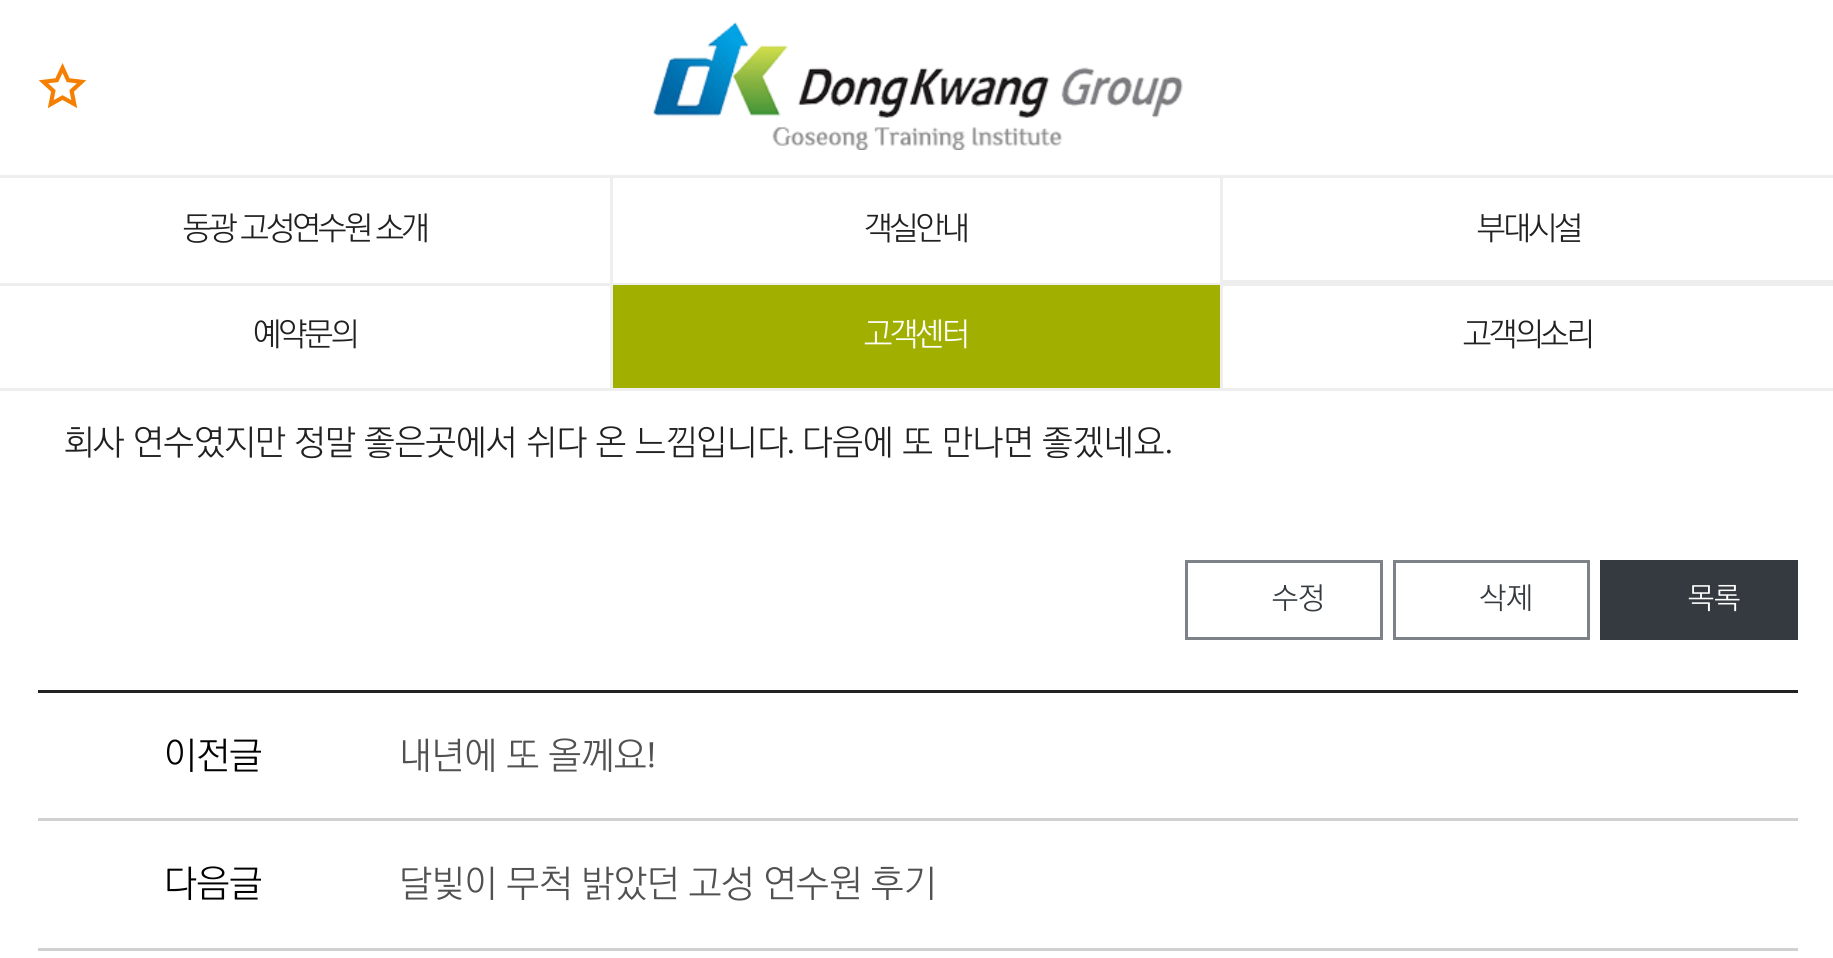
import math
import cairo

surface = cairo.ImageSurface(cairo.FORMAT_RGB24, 1833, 958)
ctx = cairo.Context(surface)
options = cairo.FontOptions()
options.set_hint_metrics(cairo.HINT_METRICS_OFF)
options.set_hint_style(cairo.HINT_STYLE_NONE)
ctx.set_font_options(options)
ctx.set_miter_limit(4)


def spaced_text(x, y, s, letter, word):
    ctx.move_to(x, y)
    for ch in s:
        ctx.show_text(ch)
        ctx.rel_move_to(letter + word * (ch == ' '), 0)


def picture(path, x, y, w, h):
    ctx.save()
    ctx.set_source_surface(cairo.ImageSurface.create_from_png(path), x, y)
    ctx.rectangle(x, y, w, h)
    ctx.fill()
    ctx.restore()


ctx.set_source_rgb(1, 1, 1)
ctx.paint()
picture("img1.png", 38, 63, 49, 45)
picture("img2.png", 653, 22, 530, 128)
ctx.set_source_rgb(0.933, 0.933, 0.933)
ctx.rectangle(0, 388, 1833, 3)
ctx.fill()
ctx.rectangle(0, 175, 1833, 3)
ctx.fill()
ctx.rectangle(610, 175, 3, 108)
ctx.fill()
ctx.select_font_face("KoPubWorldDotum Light")
ctx.set_font_size(32.5)
ctx.set_source_rgb(0.129, 0.129, 0.129)
spaced_text(183, 238, "동광 고성연수원 소개", -2.5, -1)
ctx.set_source_rgb(0.933, 0.933, 0.933)
ctx.rectangle(1220, 175, 3, 108)
ctx.fill()
ctx.set_source_rgb(0.129, 0.129, 0.129)
spaced_text(864, 238, "객실안내", -2.5, 0)
ctx.set_source_rgb(0.933, 0.933, 0.933)
ctx.rectangle(1223, 280, 610, 6)
ctx.fill()
ctx.set_source_rgb(0.129, 0.129, 0.129)
spaced_text(1477, 238, "부대시설", -2.5, 0)
ctx.set_source_rgb(0.933, 0.933, 0.933)
ctx.rectangle(0, 283, 613, 3)
ctx.fill()
ctx.rectangle(610, 283, 3, 105)
ctx.fill()
ctx.set_source_rgb(0.129, 0.129, 0.129)
spaced_text(253, 344, "예약문의", -2.5, 0)
ctx.set_source_rgb(0.933, 0.933, 0.933)
ctx.rectangle(613, 283, 610, 2)
ctx.fill()
ctx.rectangle(1220, 283, 3, 105)
ctx.fill()
ctx.set_source_rgb(0.631, 0.69, 0)
ctx.rectangle(613, 285, 607, 103)
ctx.fill()
ctx.set_source_rgb(1, 1, 1)
spaced_text(864, 344, "고객센터", -2.5, 0)
ctx.set_source_rgb(0.129, 0.129, 0.129)
spaced_text(1463, 344, "고객의소리", -2.5, 0)
ctx.set_font_size(35)
spaced_text(63, 453, "회사 연수였지만 정말 좋은곳에서 쉬다 온 느낌입니다", 0, -1.25)
ctx.select_font_face("Philosopher")
ctx.move_to(787, 453)
ctx.show_text(".")
ctx.select_font_face("KoPubWorldDotum Light")
spaced_text(802, 453, "다음에 또 만나면 좋겠네요", 0, -1.25)
ctx.select_font_face("Philosopher")
ctx.move_to(1165, 453)
ctx.show_text(".")
ctx.rectangle(1186.5, 561.5, 195, 77)
ctx.set_source_rgb(0.49, 0.51, 0.533)
ctx.set_line_width(3)
ctx.stroke()
ctx.select_font_face("KoPubWorldDotum Light")
ctx.set_font_size(30)
ctx.set_source_rgb(0.204, 0.227, 0.251)
ctx.move_to(1272, 607)
ctx.show_text("수정")
ctx.rectangle(1394.5, 561.5, 194, 77)
ctx.set_source_rgb(0.49, 0.51, 0.533)
ctx.stroke()
ctx.set_source_rgb(0.204, 0.227, 0.251)
ctx.move_to(1480, 607)
ctx.show_text("삭제")
ctx.rectangle(1600, 560, 198, 80)
ctx.fill()
ctx.set_source_rgb(1, 1, 1)
ctx.move_to(1688, 607)
ctx.show_text("목록")
ctx.set_source_rgb(0.133, 0.133, 0.133)
ctx.rectangle(38, 690, 1760, 3)
ctx.fill()
ctx.set_source_rgb(0.82, 0.82, 0.82)
ctx.rectangle(38, 818, 1760, 3)
ctx.fill()
ctx.set_font_size(37.5)
ctx.set_source_rgb(0, 0, 0)
ctx.move_to(164, 767)
ctx.show_text("이전글")
ctx.set_source_rgb(0.318, 0.318, 0.318)
spaced_text(399, 767, "내년에 또 올께요", 0, -1.5)
ctx.select_font_face("Philosopher")
ctx.move_to(647, 767)
ctx.show_text("!")
ctx.set_source_rgb(0.82, 0.82, 0.82)
ctx.rectangle(38, 948, 1760, 3)
ctx.fill()
ctx.select_font_face("KoPubWorldDotum Light")
ctx.set_source_rgb(0, 0, 0)
ctx.move_to(164, 895)
ctx.show_text("다음글")
ctx.set_source_rgb(0.318, 0.318, 0.318)
spaced_text(399, 895, "달빛이 무척 밝았던 고성 연수원 후기", 0, -1.5)
surface.write_to_png("page.png")
